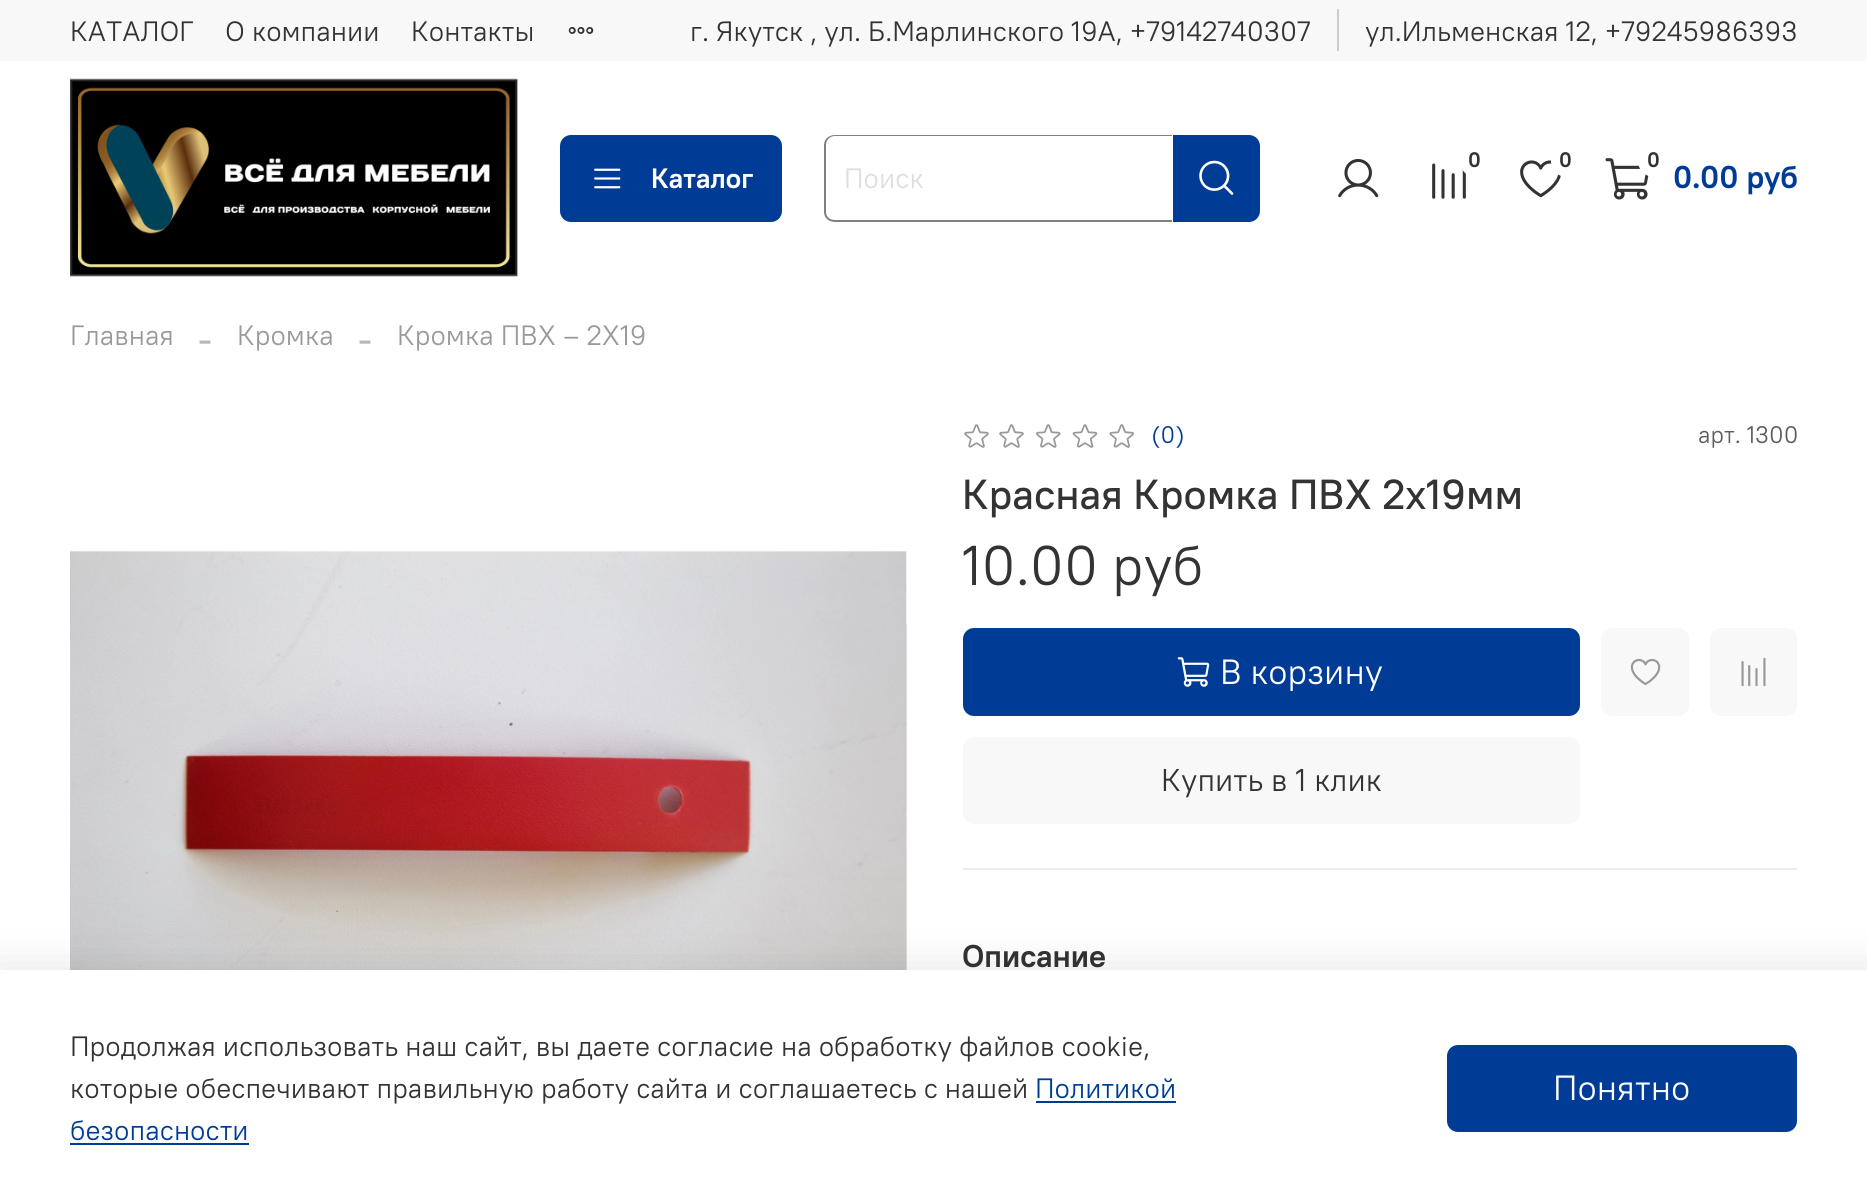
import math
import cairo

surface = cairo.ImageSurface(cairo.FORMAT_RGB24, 1867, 1187)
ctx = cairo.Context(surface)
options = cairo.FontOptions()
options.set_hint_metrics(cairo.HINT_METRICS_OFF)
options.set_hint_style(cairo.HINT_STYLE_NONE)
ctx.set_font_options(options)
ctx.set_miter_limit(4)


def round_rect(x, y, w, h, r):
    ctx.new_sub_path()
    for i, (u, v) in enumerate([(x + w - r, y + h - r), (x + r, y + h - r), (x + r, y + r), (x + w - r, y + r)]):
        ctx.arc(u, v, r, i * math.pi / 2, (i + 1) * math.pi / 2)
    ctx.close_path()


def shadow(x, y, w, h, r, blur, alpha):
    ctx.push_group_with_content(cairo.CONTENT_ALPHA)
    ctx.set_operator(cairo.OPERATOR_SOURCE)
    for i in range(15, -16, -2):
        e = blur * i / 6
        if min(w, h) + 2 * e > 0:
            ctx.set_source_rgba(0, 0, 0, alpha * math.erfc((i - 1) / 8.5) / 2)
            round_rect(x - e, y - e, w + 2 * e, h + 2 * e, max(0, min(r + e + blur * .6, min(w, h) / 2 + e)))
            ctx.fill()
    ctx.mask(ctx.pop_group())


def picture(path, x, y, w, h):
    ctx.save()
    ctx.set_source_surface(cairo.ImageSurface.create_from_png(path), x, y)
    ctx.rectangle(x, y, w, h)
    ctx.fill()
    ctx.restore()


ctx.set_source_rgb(1, 1, 1)
ctx.paint()
ctx.set_source_rgb(0.969, 0.969, 0.969)
ctx.rectangle(0, 0, 1867, 61)
ctx.fill()
ctx.select_font_face("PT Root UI")
ctx.set_font_size(28)
ctx.set_source_rgb(0.2, 0.2, 0.2)
ctx.move_to(70, 41)
ctx.show_text("КАТАЛОГ")
ctx.move_to(225, 41)
ctx.show_text("О компании")
ctx.move_to(411, 41)
ctx.show_text("Контакты")
picture("img1.png", 568, 27, 26, 7)
ctx.set_source_rgb(0.8, 0.8, 0.8)
ctx.rectangle(1337, 9, 2, 42)
ctx.fill()
ctx.set_source_rgb(0.2, 0.2, 0.2)
ctx.move_to(690, 41)
ctx.show_text("г. Якутск , ул. Б.Марлинского 19А, +79142740307")
ctx.move_to(1365, 41)
ctx.show_text("ул.Ильменская 12, +79245986393")
picture("img2.png", 70, 78, 448, 199)
ctx.set_source_rgb(0, 0.235, 0.588)
round_rect(560, 135, 222, 87, 11)
ctx.fill()
picture("img3.png", 594, 168, 27, 21)
ctx.select_font_face("PT Root UI", cairo.FONT_SLANT_NORMAL, cairo.FONT_WEIGHT_BOLD)
ctx.set_source_rgb(1, 1, 1)
ctx.move_to(651, 188)
ctx.show_text("Каталог")
ctx.set_source_rgb(0.502, 0.502, 0.502)
ctx.set_fill_rule(cairo.FILL_RULE_EVEN_ODD)
ctx.new_path()
ctx.move_to(835, 135)
ctx.line_to(1172, 135)
ctx.line_to(1172, 222)
ctx.line_to(835, 222)
ctx.curve_to(829, 222, 824, 218, 824, 212)
ctx.line_to(824, 145)
ctx.curve_to(824, 139, 829, 135, 835, 135)
ctx.close_path()
ctx.move_to(835, 136)
ctx.line_to(1172, 136)
ctx.line_to(1172, 220)
ctx.line_to(835, 220)
ctx.curve_to(830, 220, 826, 217, 826, 212)
ctx.line_to(826, 145)
ctx.curve_to(826, 140, 830, 136, 835, 136)
ctx.close_path()
ctx.fill()
ctx.select_font_face("PT Root UI")
ctx.set_source_rgb(0.867, 0.867, 0.867)
ctx.move_to(844, 188)
ctx.show_text("Поиск")
ctx.set_source_rgb(0, 0.235, 0.588)
ctx.new_path()
ctx.move_to(1173, 135)
ctx.line_to(1249, 135)
ctx.curve_to(1255, 135, 1260, 140, 1260, 146)
ctx.line_to(1260, 211)
ctx.curve_to(1260, 217, 1255, 222, 1249, 222)
ctx.line_to(1173, 222)
ctx.close_path()
ctx.fill()
picture("img4.png", 1199, 160, 35, 35)
picture("img5.png", 1338, 159, 41, 39)
picture("img6.png", 1432, 163, 34, 36)
ctx.set_source_rgb(1, 1, 1)
round_rect(1460, 145, 31, 32, 15.5)
ctx.fill()
ctx.select_font_face("PT Root UI", cairo.FONT_SLANT_NORMAL, cairo.FONT_WEIGHT_BOLD)
ctx.set_font_size(21)
ctx.set_source_rgb(0.2, 0.2, 0.2)
ctx.move_to(1468, 167)
ctx.show_text("0")
picture("img7.png", 1520, 160, 41, 38)
ctx.set_source_rgb(1, 1, 1)
round_rect(1551, 145, 31, 32, 15.5)
ctx.fill()
ctx.set_source_rgb(0.2, 0.2, 0.2)
ctx.move_to(1559, 167)
ctx.show_text("0")
picture("img8.png", 1605, 158, 44, 42)
ctx.set_source_rgb(1, 1, 1)
ctx.arc(1654, 161, 16, 0, 2 * math.pi)
ctx.fill()
ctx.set_source_rgb(0.2, 0.2, 0.2)
ctx.move_to(1647, 167)
ctx.show_text("0")
ctx.set_font_size(31.5)
ctx.set_source_rgb(0, 0.235, 0.588)
ctx.move_to(1673, 188)
ctx.show_text("0.00 руб")
ctx.select_font_face("PT Root UI")
ctx.set_font_size(28)
ctx.set_source_rgb(0.6, 0.6, 0.6)
ctx.move_to(70, 345)
ctx.show_text("Главная")
ctx.select_font_face("Liberation Serif")
ctx.set_font_size(42)
ctx.set_source_rgb(0.722, 0.722, 0.722)
ctx.move_to(198, 352)
ctx.show_text("-")
ctx.select_font_face("PT Root UI")
ctx.set_font_size(28)
ctx.set_source_rgb(0.6, 0.6, 0.6)
ctx.move_to(237, 345)
ctx.show_text("Кромка")
ctx.select_font_face("Liberation Serif")
ctx.set_font_size(42)
ctx.set_source_rgb(0.722, 0.722, 0.722)
ctx.move_to(358, 352)
ctx.show_text("-")
ctx.select_font_face("PT Root UI")
ctx.set_font_size(28)
ctx.set_source_rgb(0.6, 0.6, 0.6)
ctx.move_to(397, 345)
ctx.show_text("Кромка ПВХ – 2Х19")
picture("img9.png", 70, 550, 837, 420)
picture("img10.png", 964, 424, 25, 24)
picture("img10.png", 999, 424, 25, 24)
picture("img11.png", 1036, 424, 25, 24)
picture("img12.png", 1072, 424, 26, 24)
picture("img13.png", 1109, 424, 25, 24)
ctx.set_font_size(24)
ctx.set_source_rgb(0, 0.235, 0.588)
ctx.move_to(1151, 443)
ctx.show_text("(0)")
ctx.set_source_rgb(0.361, 0.361, 0.361)
ctx.move_to(1698, 443)
ctx.show_text("арт. 1300")
ctx.select_font_face("PT Root UI Medium")
ctx.set_font_size(42)
ctx.set_source_rgb(0.2, 0.2, 0.2)
ctx.move_to(962, 509)
ctx.show_text("Красная Кромка ПВХ 2х19мм")
ctx.select_font_face("PT Root UI")
ctx.set_font_size(56)
ctx.move_to(962, 585)
ctx.show_text("10.00 руб")
ctx.set_source_rgb(0, 0.235, 0.588)
round_rect(963, 628, 617, 88, 11)
ctx.fill()
picture("img14.png", 1177, 657, 33, 30)
ctx.set_font_size(35)
ctx.set_source_rgb(1, 1, 1)
ctx.move_to(1220, 684)
ctx.show_text("В корзину")
ctx.set_source_rgb(0.969, 0.969, 0.969)
round_rect(963, 737, 617, 87, 11)
ctx.fill()
ctx.set_font_size(31.5)
ctx.set_source_rgb(0.2, 0.2, 0.2)
ctx.move_to(1161, 791)
ctx.show_text("Купить в 1 клик")
ctx.set_source_rgb(0.969, 0.969, 0.969)
round_rect(1601, 628, 88, 88, 11)
ctx.fill()
picture("img15.png", 1630, 658, 31, 28)
round_rect(1710, 628, 87, 88, 11)
ctx.fill()
picture("img16.png", 1741, 657, 25, 30)
ctx.set_source_rgb(0.929, 0.929, 0.929)
ctx.rectangle(963, 868, 834, 2)
ctx.fill()
ctx.select_font_face("PT Root UI", cairo.FONT_SLANT_NORMAL, cairo.FONT_WEIGHT_BOLD)
ctx.set_source_rgb(0.2, 0.2, 0.2)
ctx.move_to(962, 967)
ctx.show_text("Описание")
ctx.set_source_rgb(0, 0, 0)
shadow(-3, 964, 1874, 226, 0, 20, 0.09)
ctx.set_source_rgb(1, 1, 1)
ctx.rectangle(0, 970, 1867, 217)
ctx.fill()
ctx.select_font_face("PT Root UI")
ctx.set_font_size(28)
ctx.set_source_rgb(0.2, 0.2, 0.2)
ctx.move_to(70, 1056)
ctx.show_text("Продолжая использовать наш сайт, вы даете согласие на обработку файлов cookie,")
ctx.move_to(70, 1098)
ctx.show_text("которые обеспечивают правильную работу сайта и соглашаетесь с нашей")
ctx.set_source_rgb(0, 0.235, 0.588)
ctx.move_to(1035, 1098)
ctx.show_text("Политикой")
ctx.rectangle(1036, 1101, 140, 2)
ctx.fill()
ctx.move_to(70, 1140)
ctx.show_text("безопасности")
ctx.rectangle(70, 1143, 179, 2)
ctx.fill()
round_rect(1447, 1045, 350, 87, 11)
ctx.fill()
ctx.set_font_size(35)
ctx.set_source_rgb(1, 1, 1)
ctx.move_to(1553, 1100)
ctx.show_text("Понятно")
surface.write_to_png("page.png")
